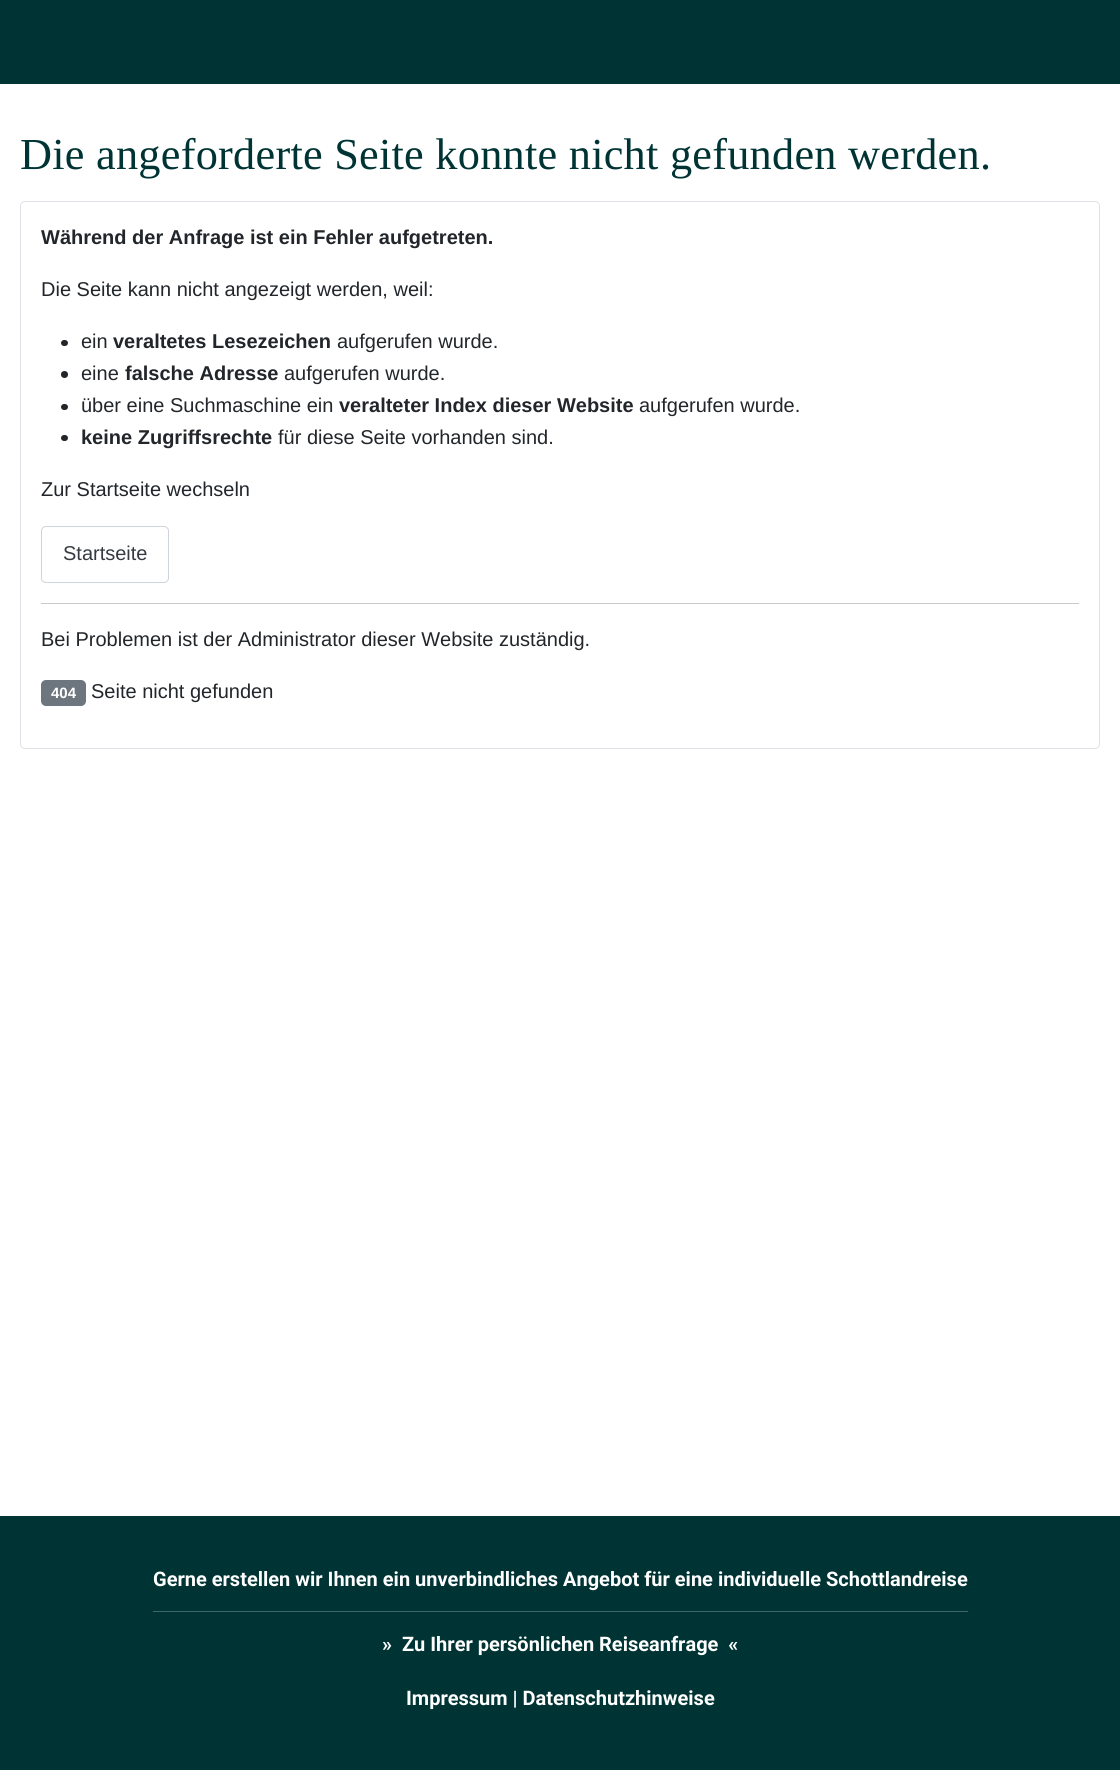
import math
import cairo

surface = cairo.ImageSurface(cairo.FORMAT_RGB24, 1120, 1770)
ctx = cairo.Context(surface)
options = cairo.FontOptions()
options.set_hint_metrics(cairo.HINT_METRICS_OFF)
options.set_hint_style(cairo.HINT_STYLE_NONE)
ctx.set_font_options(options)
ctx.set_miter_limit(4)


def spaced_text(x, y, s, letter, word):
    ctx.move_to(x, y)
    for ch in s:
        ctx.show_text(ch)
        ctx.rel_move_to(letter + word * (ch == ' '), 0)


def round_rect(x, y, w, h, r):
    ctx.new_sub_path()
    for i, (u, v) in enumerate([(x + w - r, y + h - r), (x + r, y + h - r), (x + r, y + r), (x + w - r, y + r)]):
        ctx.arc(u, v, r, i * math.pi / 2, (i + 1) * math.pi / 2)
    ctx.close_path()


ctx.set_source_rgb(1, 1, 1)
ctx.paint()
ctx.set_source_rgb(0, 0.2, 0.2)
ctx.rectangle(0, 0, 1120, 84)
ctx.fill()
ctx.select_font_face("Liberation Serif")
ctx.set_font_size(44.3)
spaced_text(20, 169, "Die angeforderte Seite konnte nicht gefunden werden.", 0.25, 0)
round_rect(20.5, 201.5, 1079, 547, 4.5)
ctx.set_source_rgb(0.875, 0.89, 0.906)
ctx.set_line_width(1)
ctx.stroke()
ctx.select_font_face("Liberation Sans", cairo.FONT_SLANT_NORMAL, cairo.FONT_WEIGHT_BOLD)
ctx.set_font_size(20)
ctx.set_source_rgb(0.133, 0.149, 0.165)
ctx.move_to(41, 244)
ctx.show_text("Während der Anfrage ist ein Fehler aufgetreten.")
ctx.select_font_face("Liberation Sans")
ctx.move_to(41, 296)
ctx.show_text("Die Seite kann nicht angezeigt werden, weil:")
round_rect(61, 340, 7, 6, 3)
ctx.fill()
ctx.move_to(81, 348)
ctx.show_text("ein")
ctx.select_font_face("Liberation Sans", cairo.FONT_SLANT_NORMAL, cairo.FONT_WEIGHT_BOLD)
ctx.move_to(113, 348)
ctx.show_text("veraltetes Lesezeichen")
ctx.select_font_face("Liberation Sans")
ctx.move_to(337, 348)
ctx.show_text("aufgerufen wurde.")
ctx.new_path()
ctx.arc(64.5, 374.5, 3.5, 0, 2 * math.pi)
ctx.fill()
ctx.move_to(81, 380)
ctx.show_text("eine")
ctx.select_font_face("Liberation Sans", cairo.FONT_SLANT_NORMAL, cairo.FONT_WEIGHT_BOLD)
ctx.move_to(125, 380)
ctx.show_text("falsche Adresse")
ctx.select_font_face("Liberation Sans")
ctx.move_to(284, 380)
ctx.show_text("aufgerufen wurde.")
round_rect(61, 404, 7, 6, 3)
ctx.fill()
ctx.move_to(81, 412)
ctx.show_text("über eine Suchmaschine ein")
ctx.select_font_face("Liberation Sans", cairo.FONT_SLANT_NORMAL, cairo.FONT_WEIGHT_BOLD)
ctx.move_to(339, 412)
ctx.show_text("veralteter Index dieser Website")
ctx.select_font_face("Liberation Sans")
ctx.move_to(639, 412)
ctx.show_text("aufgerufen wurde.")
round_rect(61, 435, 7, 6, 3)
ctx.fill()
ctx.select_font_face("Liberation Sans", cairo.FONT_SLANT_NORMAL, cairo.FONT_WEIGHT_BOLD)
ctx.move_to(81, 444)
ctx.show_text("keine Zugriffsrechte")
ctx.select_font_face("Liberation Sans")
ctx.move_to(278, 444)
ctx.show_text("für diese Seite vorhanden sind.")
ctx.move_to(41, 496)
ctx.show_text("Zur Startseite wechseln")
round_rect(41.5, 526.5, 127, 56, 4.5)
ctx.set_source_rgb(0.808, 0.831, 0.855)
ctx.stroke()
ctx.set_source_rgb(0.208, 0.231, 0.255)
ctx.move_to(63, 560)
ctx.show_text("Startseite")
ctx.set_source_rgb(0.784, 0.788, 0.792)
ctx.rectangle(41, 603, 1038, 1)
ctx.fill()
ctx.set_source_rgb(0.133, 0.149, 0.165)
ctx.move_to(41, 646)
ctx.show_text("Bei Problemen ist der Administrator dieser Website zuständig.")
ctx.set_source_rgb(0.427, 0.459, 0.494)
round_rect(41, 680, 45, 26, 5)
ctx.fill()
ctx.select_font_face("Liberation Sans", cairo.FONT_SLANT_NORMAL, cairo.FONT_WEIGHT_BOLD)
ctx.set_font_size(15)
ctx.set_source_rgb(1, 1, 1)
ctx.move_to(51, 698)
ctx.show_text("404")
ctx.select_font_face("Liberation Sans")
ctx.set_font_size(20)
ctx.set_source_rgb(0.133, 0.149, 0.165)
ctx.move_to(91, 698)
ctx.show_text("Seite nicht gefunden")
ctx.set_source_rgb(0, 0.2, 0.2)
ctx.rectangle(0, 1516, 1120, 254)
ctx.fill()
ctx.select_font_face("Roboto", cairo.FONT_SLANT_NORMAL, cairo.FONT_WEIGHT_BOLD)
ctx.set_source_rgb(1, 1, 1)
ctx.move_to(153, 1586)
ctx.show_text("Gerne erstellen wir Ihnen ein unverbindliches Angebot für eine individuelle Schottlandreise")
ctx.set_source_rgb(0.251, 0.4, 0.4)
ctx.rectangle(153, 1611, 815, 1)
ctx.fill()
ctx.set_source_rgb(1, 1, 1)
ctx.move_to(382, 1651)
ctx.show_text("»  Zu Ihrer persönlichen Reiseanfrage  «")
ctx.move_to(406, 1705)
ctx.show_text("Impressum | Datenschutzhinweise")
surface.write_to_png("page.png")
